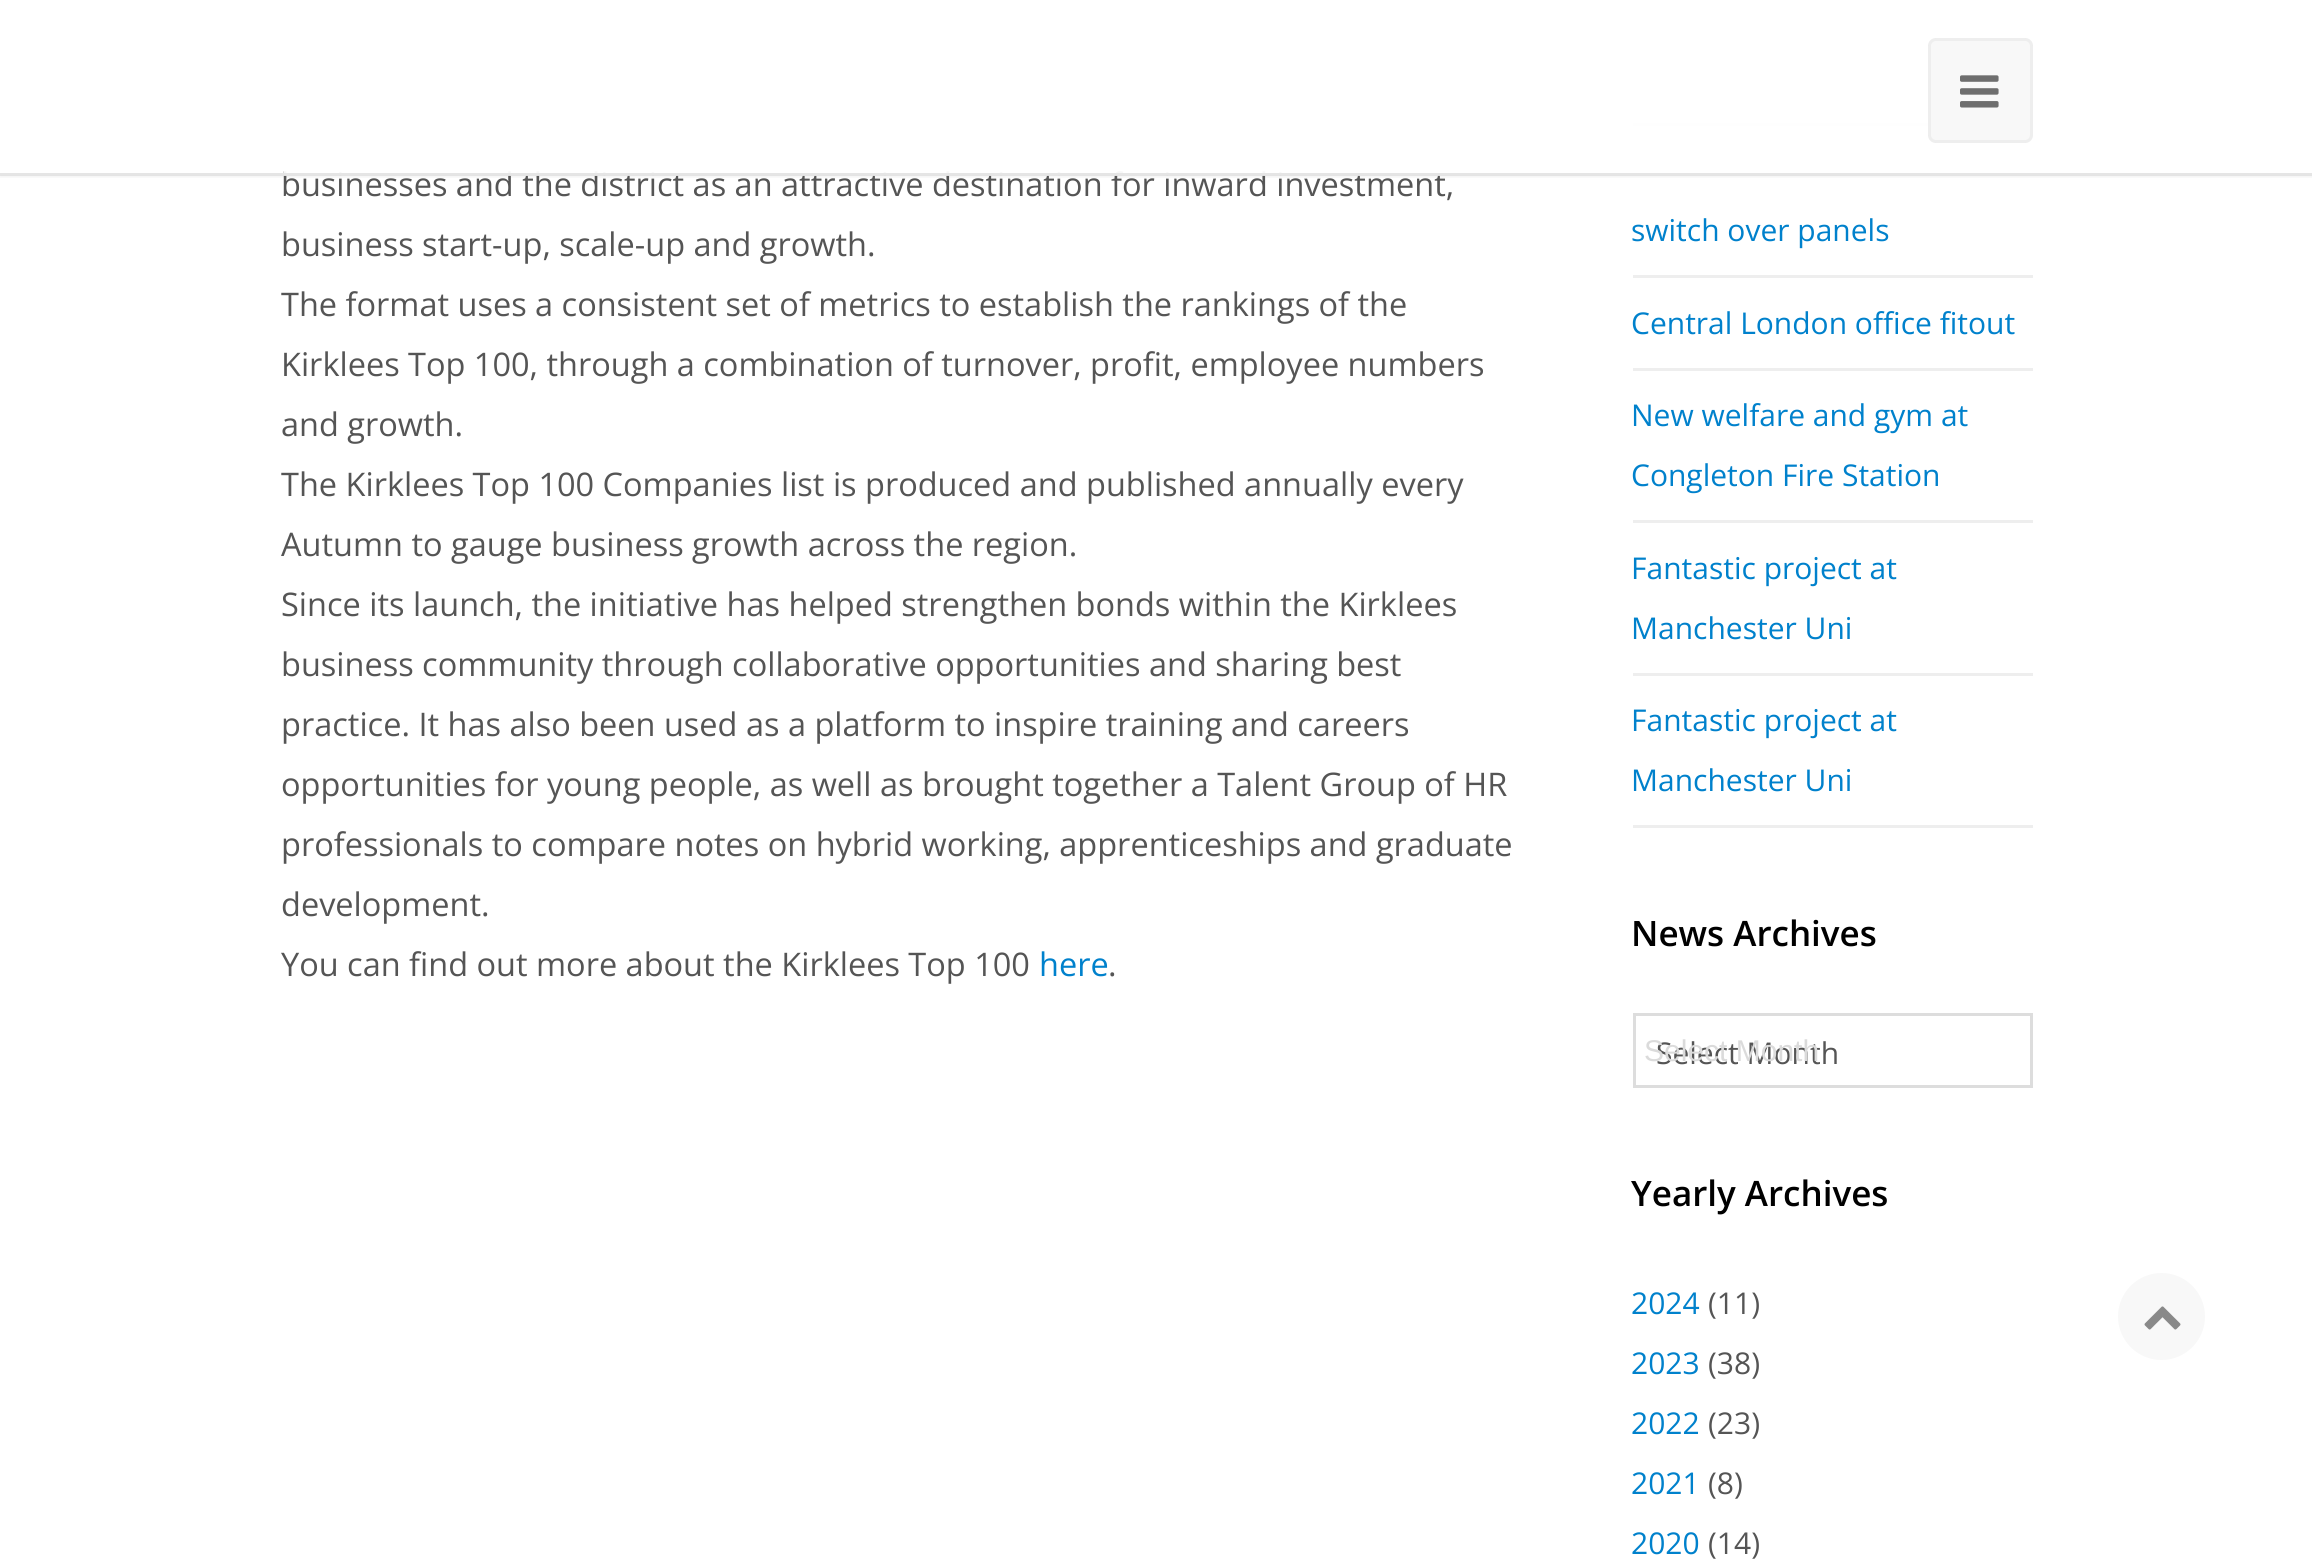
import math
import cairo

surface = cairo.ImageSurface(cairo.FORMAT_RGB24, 2312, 1567)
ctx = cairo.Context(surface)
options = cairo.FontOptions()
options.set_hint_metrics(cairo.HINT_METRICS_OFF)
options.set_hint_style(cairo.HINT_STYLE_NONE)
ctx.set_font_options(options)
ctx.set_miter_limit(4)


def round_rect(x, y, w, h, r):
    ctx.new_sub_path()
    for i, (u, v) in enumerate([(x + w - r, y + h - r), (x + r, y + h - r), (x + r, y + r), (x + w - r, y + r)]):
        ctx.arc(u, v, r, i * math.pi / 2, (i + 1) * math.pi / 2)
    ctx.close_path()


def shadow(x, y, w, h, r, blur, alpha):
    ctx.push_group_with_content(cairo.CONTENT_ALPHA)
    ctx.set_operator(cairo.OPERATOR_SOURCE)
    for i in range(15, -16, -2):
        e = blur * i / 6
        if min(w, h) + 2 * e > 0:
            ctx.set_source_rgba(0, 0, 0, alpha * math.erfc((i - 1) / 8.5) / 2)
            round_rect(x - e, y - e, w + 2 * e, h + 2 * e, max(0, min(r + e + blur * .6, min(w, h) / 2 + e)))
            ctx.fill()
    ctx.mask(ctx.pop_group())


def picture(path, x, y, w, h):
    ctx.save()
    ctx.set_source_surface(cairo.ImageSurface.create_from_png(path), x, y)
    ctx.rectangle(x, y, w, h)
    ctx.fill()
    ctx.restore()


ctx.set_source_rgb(1, 1, 1)
ctx.paint()
ctx.set_source_rgb(0.933, 0.933, 0.933)
ctx.rectangle(1633, 123, 295, 3)
ctx.fill()
ctx.save()
ctx.rectangle(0, 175, 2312, 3)
ctx.clip()
ctx.set_source_rgb(0, 0, 0)
shadow(0, 0, 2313, 175, 0, 4, 0.1)
ctx.restore()
ctx.select_font_face("Open Sans")
ctx.set_font_size(32.5)
ctx.set_source_rgb(0.333, 0.333, 0.333)
ctx.move_to(281, 196)
ctx.show_text("businesses and the district as an attractive destination for inward investment,")
ctx.set_source_rgba(1, 1, 1, 0.95)
ctx.rectangle(284, 123, 1644, 52)
ctx.fill()
ctx.set_source_rgba(0.894, 0.894, 0.894, 0.95)
ctx.rectangle(0, 173, 2312, 3)
ctx.fill()
ctx.set_source_rgb(0.969, 0.969, 0.969)
round_rect(1928, 38, 105, 105, 8)
ctx.fill()
round_rect(1929.5, 39.5, 102, 102, 6.5)
ctx.set_source_rgba(0.933, 0.933, 0.933, 0.95)
ctx.set_line_width(3)
ctx.stroke()
picture("img1.png", 1960, 75, 39, 33)
ctx.set_source_rgb(0.333, 0.333, 0.333)
ctx.move_to(281, 256)
ctx.show_text("business start-up, scale-up and growth.")
ctx.move_to(281, 316)
ctx.show_text("The format uses a consistent set of metrics to establish the rankings of the")
ctx.move_to(281, 376)
ctx.show_text("Kirklees Top 100, through a combination of turnover, profit, employee numbers")
ctx.move_to(281, 436)
ctx.show_text("and growth.")
ctx.move_to(281, 496)
ctx.show_text("The Kirklees Top 100 Companies list is produced and published annually every")
ctx.move_to(281, 556)
ctx.show_text("Autumn to gauge business growth across the region.")
ctx.move_to(281, 616)
ctx.show_text("Since its launch, the initiative has helped strengthen bonds within the Kirklees")
ctx.move_to(281, 676)
ctx.show_text("business community through collaborative opportunities and sharing best")
ctx.move_to(281, 736)
ctx.show_text("practice. It has also been used as a platform to inspire training and careers")
ctx.move_to(281, 796)
ctx.show_text("opportunities for young people, as well as brought together a Talent Group of HR")
ctx.move_to(281, 856)
ctx.show_text("professionals to compare notes on hybrid working, apprenticeships and graduate")
ctx.move_to(281, 916)
ctx.show_text("development.")
ctx.move_to(281, 976)
ctx.show_text("You can find out more about the Kirklees Top 100")
ctx.set_source_rgb(0, 0.506, 0.8)
ctx.move_to(1039, 976)
ctx.show_text("here")
ctx.set_source_rgb(0.333, 0.333, 0.333)
ctx.move_to(1108, 976)
ctx.show_text(".")
ctx.set_source_rgb(0.933, 0.933, 0.933)
ctx.rectangle(1633, 275, 400, 3)
ctx.fill()
ctx.set_font_size(30)
ctx.set_source_rgb(0, 0.506, 0.8)
ctx.move_to(1631, 241)
ctx.show_text("switch over panels")
ctx.set_source_rgb(0.933, 0.933, 0.933)
ctx.rectangle(1633, 368, 400, 3)
ctx.fill()
ctx.set_source_rgb(0, 0.506, 0.8)
ctx.move_to(1631, 334)
ctx.show_text("Central London office fitout")
ctx.set_source_rgb(0.933, 0.933, 0.933)
ctx.rectangle(1633, 520, 400, 3)
ctx.fill()
ctx.set_source_rgb(0, 0.506, 0.8)
ctx.move_to(1631, 426)
ctx.show_text("New welfare and gym at")
ctx.move_to(1631, 486)
ctx.show_text("Congleton Fire Station")
ctx.set_source_rgb(0.933, 0.933, 0.933)
ctx.rectangle(1633, 673, 400, 3)
ctx.fill()
ctx.set_source_rgb(0, 0.506, 0.8)
ctx.move_to(1631, 579)
ctx.show_text("Fantastic project at")
ctx.move_to(1631, 639)
ctx.show_text("Manchester Uni")
ctx.set_source_rgb(0.933, 0.933, 0.933)
ctx.rectangle(1633, 825, 400, 3)
ctx.fill()
ctx.set_source_rgb(0, 0.506, 0.8)
ctx.move_to(1631, 731)
ctx.show_text("Fantastic project at")
ctx.move_to(1631, 791)
ctx.show_text("Manchester Uni")
ctx.select_font_face("Open Sans SemiBold")
ctx.set_font_size(35)
ctx.set_source_rgb(0, 0, 0)
ctx.move_to(1631, 946)
ctx.show_text("News Archives")
ctx.rectangle(1634.5, 1014.5, 397, 72)
ctx.set_source_rgb(0.867, 0.867, 0.867)
ctx.stroke()
ctx.select_font_face("Open Sans")
ctx.set_font_size(30)
ctx.set_source_rgb(0.333, 0.333, 0.333)
ctx.move_to(1656, 1064)
ctx.show_text("Select Month")
ctx.select_font_face("Liberation Sans")
ctx.set_source_rgb(0.859, 0.859, 0.859)
ctx.move_to(1644, 1061)
ctx.show_text("Select Month")
ctx.select_font_face("Open Sans SemiBold")
ctx.set_font_size(35)
ctx.set_source_rgb(0, 0, 0)
ctx.move_to(1631, 1206)
ctx.show_text("Yearly Archives")
ctx.select_font_face("Open Sans")
ctx.set_font_size(30)
ctx.set_source_rgb(0, 0.506, 0.8)
ctx.move_to(1631, 1314)
ctx.show_text("2024")
ctx.set_source_rgb(0.333, 0.333, 0.333)
ctx.move_to(1708, 1314)
ctx.show_text("(11)")
ctx.set_source_rgb(0, 0.506, 0.8)
ctx.move_to(1631, 1374)
ctx.show_text("2023")
ctx.set_source_rgb(0.333, 0.333, 0.333)
ctx.move_to(1708, 1374)
ctx.show_text("(38)")
ctx.set_source_rgb(0, 0.506, 0.8)
ctx.move_to(1631, 1434)
ctx.show_text("2022")
ctx.set_source_rgb(0.333, 0.333, 0.333)
ctx.move_to(1708, 1434)
ctx.show_text("(23)")
ctx.set_source_rgb(0, 0.506, 0.8)
ctx.move_to(1631, 1494)
ctx.show_text("2021")
ctx.set_source_rgb(0.333, 0.333, 0.333)
ctx.move_to(1708, 1494)
ctx.show_text("(8)")
ctx.set_source_rgb(0, 0.506, 0.8)
ctx.move_to(1631, 1554)
ctx.show_text("2020")
ctx.set_source_rgb(0.333, 0.333, 0.333)
ctx.move_to(1708, 1554)
ctx.show_text("(14)")
ctx.set_source_rgb(0.969, 0.969, 0.969)
ctx.new_path()
ctx.arc(2161.5, 1316.5, 47.5, 0, 2 * math.pi)
ctx.fill_preserve()
ctx.set_source_rgb(1, 1, 1)
ctx.set_line_width(8)
ctx.stroke()
picture("img2.png", 2144, 1306, 37, 24)
surface.write_to_png("page.png")
